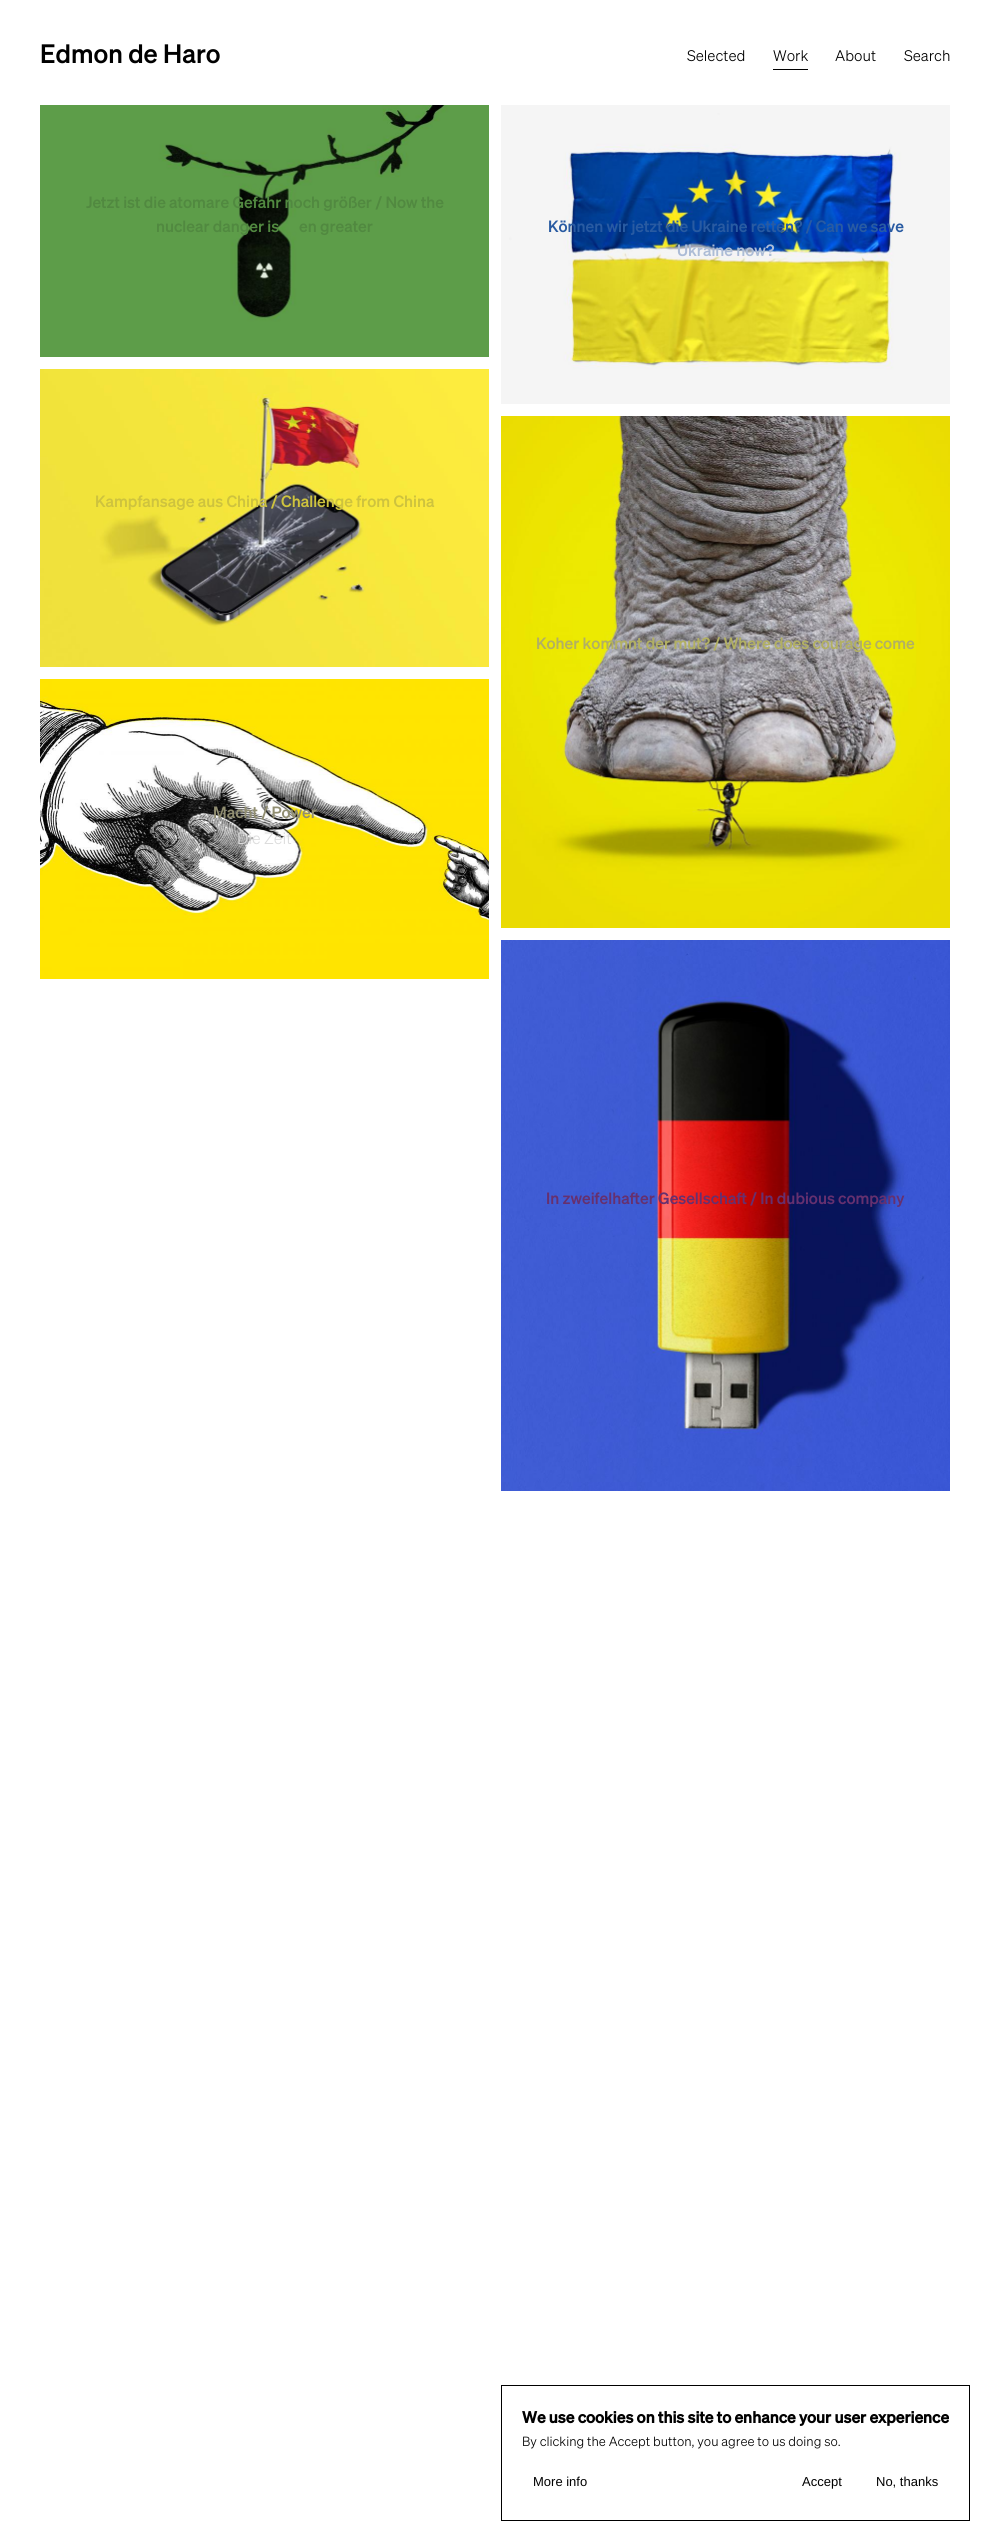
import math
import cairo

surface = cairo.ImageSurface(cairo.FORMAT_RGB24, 990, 2521)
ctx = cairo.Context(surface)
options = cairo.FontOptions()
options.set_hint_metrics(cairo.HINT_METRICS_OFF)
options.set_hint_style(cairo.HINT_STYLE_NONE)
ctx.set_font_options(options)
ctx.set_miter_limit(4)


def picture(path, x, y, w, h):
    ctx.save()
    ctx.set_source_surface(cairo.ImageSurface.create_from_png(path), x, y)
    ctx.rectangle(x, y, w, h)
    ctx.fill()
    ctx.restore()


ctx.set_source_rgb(1, 1, 1)
ctx.paint()
ctx.select_font_face("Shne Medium")
ctx.set_font_size(26)
ctx.set_source_rgb(0, 0, 0)
ctx.move_to(40, 63)
ctx.show_text("Edmon de Haro")
ctx.select_font_face("Shne Light")
ctx.set_font_size(15)
ctx.move_to(687, 61)
ctx.show_text("Selected")
ctx.rectangle(773, 69, 35, 1)
ctx.fill()
ctx.move_to(773, 61)
ctx.show_text("Work")
ctx.move_to(835, 61)
ctx.show_text("About")
ctx.move_to(904, 61)
ctx.show_text("Search")
picture("img1.png", 40, 105, 449, 252)
ctx.select_font_face("Shne Medium")
ctx.set_font_size(16)
ctx.set_source_rgb(0.318, 0.537, 0.251)
ctx.move_to(86, 208)
ctx.show_text("Jetzt ist die atomare Gefahr noch größer / Now the")
ctx.move_to(156, 232)
ctx.show_text("nuclear danger is")
ctx.move_to(299, 232)
ctx.show_text("en greater")
picture("img2.png", 501, 105, 449, 299)
ctx.set_source_rgb(0.161, 0.357, 0.635)
ctx.move_to(548, 232)
ctx.show_text("Können wir jetzt die Ukraine retten? / Can we save")
ctx.set_source_rgb(0.675, 0.737, 0.839)
ctx.move_to(677, 256)
ctx.show_text("Ukraine now?")
picture("img3.png", 40, 369, 449, 298)
ctx.set_source_rgb(0.808, 0.765, 0.243)
ctx.move_to(95, 507)
ctx.show_text("Kampfansage aus China / Challenge from China")
picture("img4.png", 501, 416, 449, 512)
ctx.set_source_rgb(0.698, 0.69, 0.388)
ctx.move_to(536, 649)
ctx.show_text("Koher kommnt der mut? / Where does courage come")
picture("img5.png", 40, 679, 449, 300)
ctx.set_source_rgb(0.569, 0.557, 0.443)
ctx.move_to(213, 818)
ctx.show_text("Macht / Power")
ctx.select_font_face("Shne Light")
ctx.set_source_rgb(0.863, 0.863, 0.863)
ctx.move_to(237, 844)
ctx.show_text("Die Zeit")
picture("img6.png", 501, 940, 449, 551)
ctx.select_font_face("Shne Medium")
ctx.set_source_rgb(0.4, 0.188, 0.435)
ctx.move_to(546, 1204)
ctx.show_text("In zweifelhafter Gesellschaft / In dubious company")
ctx.rectangle(501.5, 2385.5, 468, 135)
ctx.set_source_rgb(0, 0, 0)
ctx.set_line_width(1)
ctx.stroke()
ctx.select_font_face("Shne", cairo.FONT_SLANT_NORMAL, cairo.FONT_WEIGHT_BOLD)
ctx.move_to(522, 2423)
ctx.show_text("We use cookies on this site to enhance your user experience")
ctx.select_font_face("Shne Light")
ctx.set_font_size(13)
ctx.move_to(522, 2446)
ctx.show_text("By clicking the Accept button, you agree to us doing so.")
ctx.select_font_face("Liberation Sans")
ctx.move_to(533, 2486)
ctx.show_text("More info")
ctx.move_to(802, 2486)
ctx.show_text("Accept")
ctx.move_to(876, 2486)
ctx.show_text("No, thanks")
surface.write_to_png("page.png")
